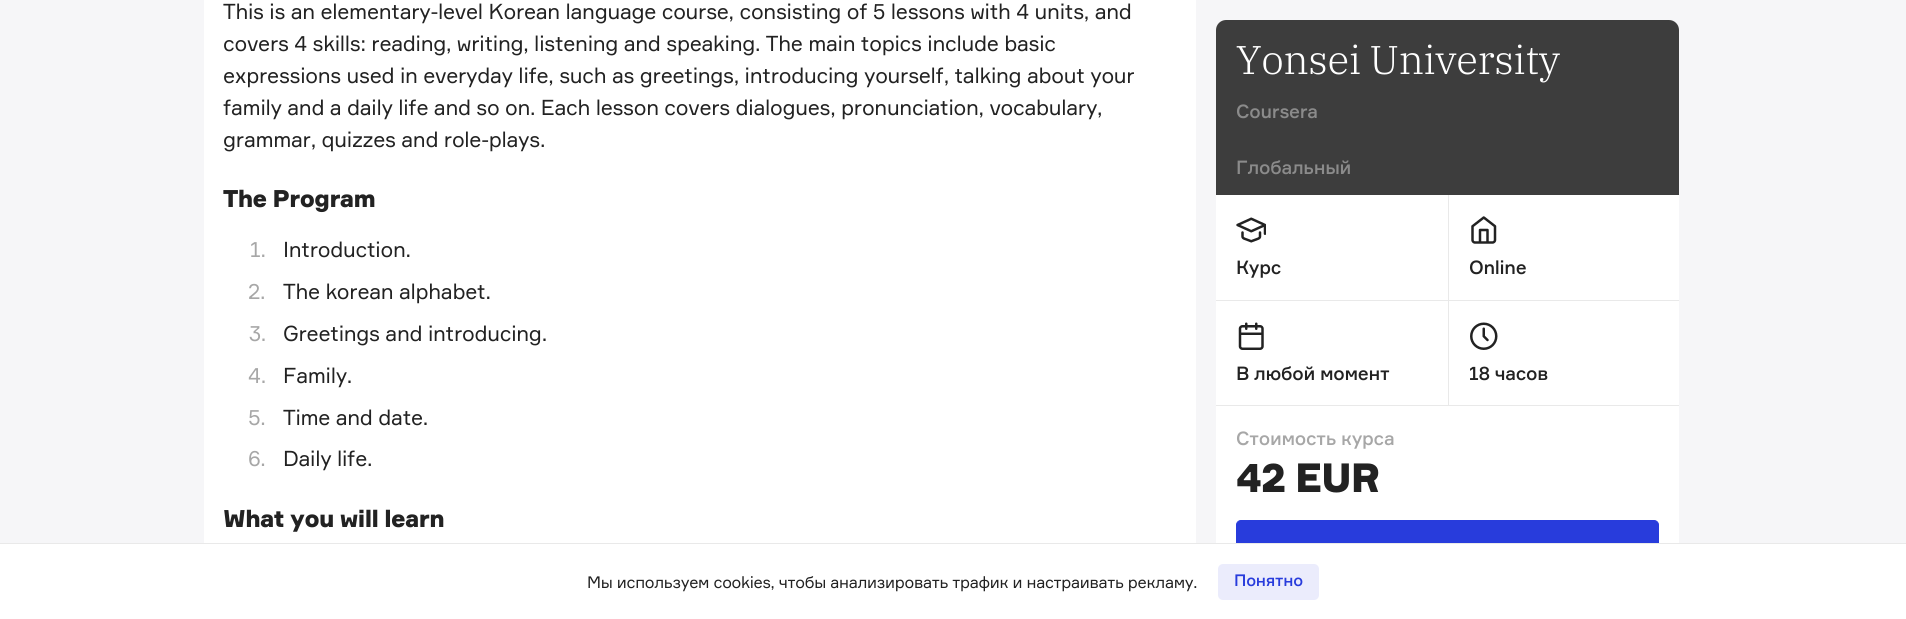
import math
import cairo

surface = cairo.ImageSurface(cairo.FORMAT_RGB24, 1906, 619)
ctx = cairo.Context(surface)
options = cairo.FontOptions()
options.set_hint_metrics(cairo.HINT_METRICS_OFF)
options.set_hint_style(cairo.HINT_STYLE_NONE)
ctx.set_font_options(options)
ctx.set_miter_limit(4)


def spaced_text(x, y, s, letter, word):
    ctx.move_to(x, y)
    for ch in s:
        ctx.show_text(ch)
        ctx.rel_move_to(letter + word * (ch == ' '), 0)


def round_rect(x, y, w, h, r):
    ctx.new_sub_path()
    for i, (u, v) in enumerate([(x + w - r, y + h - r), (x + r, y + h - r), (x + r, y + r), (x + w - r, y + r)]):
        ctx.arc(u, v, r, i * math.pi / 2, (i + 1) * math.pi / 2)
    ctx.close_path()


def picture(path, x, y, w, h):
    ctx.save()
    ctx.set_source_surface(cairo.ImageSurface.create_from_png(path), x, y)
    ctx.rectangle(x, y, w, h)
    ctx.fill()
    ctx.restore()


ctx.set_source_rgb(0.961, 0.961, 0.969)
ctx.paint()
ctx.set_source_rgb(1, 1, 1)
ctx.rectangle(204, 0, 992, 543)
ctx.fill()
ctx.select_font_face("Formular")
ctx.set_font_size(21.25)
ctx.set_source_rgb(0.133, 0.133, 0.133)
spaced_text(223, 19, "This is an elementary-level Korean language course, consisting of 5 lessons with 4 units, and", -0.28, 0)
spaced_text(223, 51, "covers 4 skills: reading, writing, listening and speaking. The main topics include basic", -0.28, 0)
spaced_text(223, 83, "expressions used in everyday life, such as greetings, introducing yourself, talking about your", -0.28, 0)
spaced_text(223, 115, "family and a daily life and so on. Each lesson covers dialogues, pronunciation, vocabulary,", -0.28, 0)
spaced_text(223, 147, "grammar, quizzes and role-plays.", -0.28, 0)
ctx.select_font_face("Formular Black")
ctx.set_font_size(23.75)
spaced_text(223, 207, "The Program", -0.6, 0)
ctx.select_font_face("Formular")
ctx.set_font_size(21.25)
ctx.set_source_rgb(0.655, 0.655, 0.655)
spaced_text(250, 257, "1.", -0.28, 0)
ctx.set_source_rgb(0.133, 0.133, 0.133)
spaced_text(283, 257, "Introduction.", -0.28, 0)
ctx.set_source_rgb(0.655, 0.655, 0.655)
spaced_text(248, 299, "2.", -0.28, 0)
ctx.set_source_rgb(0.133, 0.133, 0.133)
spaced_text(283, 299, "The korean alphabet.", -0.28, 0)
ctx.set_source_rgb(0.655, 0.655, 0.655)
spaced_text(249, 341, "3.", -0.28, 0)
ctx.set_source_rgb(0.133, 0.133, 0.133)
spaced_text(283, 341, "Greetings and introducing.", -0.28, 0)
ctx.set_source_rgb(0.655, 0.655, 0.655)
spaced_text(248, 383, "4.", -0.28, 0)
ctx.set_source_rgb(0.133, 0.133, 0.133)
spaced_text(283, 383, "Family.", -0.28, 0)
ctx.set_source_rgb(0.655, 0.655, 0.655)
spaced_text(248, 425, "5.", -0.28, 0)
ctx.set_source_rgb(0.133, 0.133, 0.133)
spaced_text(283, 425, "Time and date.", -0.28, 0)
ctx.set_source_rgb(0.655, 0.655, 0.655)
spaced_text(248, 466, "6.", -0.28, 0)
ctx.set_source_rgb(0.133, 0.133, 0.133)
spaced_text(283, 466, "Daily life.", -0.28, 0)
ctx.select_font_face("Formular Black")
ctx.set_font_size(23.75)
spaced_text(223, 527, "What you will learn", -0.6, 0)
ctx.set_source_rgb(1, 1, 1)
round_rect(1216, 20, 463, 584, 10)
ctx.fill()
ctx.set_source_rgb(0.239, 0.239, 0.239)
ctx.new_path()
ctx.move_to(1226, 20)
ctx.line_to(1669, 20)
ctx.curve_to(1674.5, 20, 1679, 24.5, 1679, 30)
ctx.line_to(1679, 195)
ctx.line_to(1216, 195)
ctx.line_to(1216, 30)
ctx.curve_to(1216, 24.5, 1220.5, 20, 1226, 20)
ctx.close_path()
ctx.fill()
ctx.select_font_face("IBM Plex Serif Light")
ctx.set_font_size(40)
ctx.set_source_rgb(1, 1, 1)
spaced_text(1236, 74, "Yonsei University", -0.28, 0)
ctx.select_font_face("Formular Medium")
ctx.set_font_size(18.75)
ctx.set_source_rgb(0.545, 0.545, 0.545)
spaced_text(1236, 118, "Coursera", -0.28, 0)
spaced_text(1236, 174, "Глобальный", -0.28, 0)
picture("img1.png", 1236, 217, 30, 26)
ctx.set_source_rgb(0.133, 0.133, 0.133)
spaced_text(1236, 274, "Курс", -0.28, 0)
ctx.set_source_rgb(0.914, 0.914, 0.914)
ctx.rectangle(1448, 195, 1, 105)
ctx.fill()
picture("img2.png", 1471, 216, 26, 28)
ctx.set_source_rgb(0.133, 0.133, 0.133)
spaced_text(1469, 274, "Online", -0.28, 0)
ctx.set_source_rgb(0.914, 0.914, 0.914)
ctx.rectangle(1216, 300, 463, 1)
ctx.fill()
picture("img3.png", 1238, 322, 26, 28)
ctx.set_source_rgb(0.133, 0.133, 0.133)
spaced_text(1236, 380, "В любой момент", -0.28, 0)
ctx.set_source_rgb(0.914, 0.914, 0.914)
ctx.rectangle(1448, 301, 1, 104)
ctx.fill()
picture("img4.png", 1470, 322, 28, 28)
ctx.set_source_rgb(0.133, 0.133, 0.133)
spaced_text(1469, 380, "18 часов", -0.28, 0)
ctx.set_source_rgb(0.914, 0.914, 0.914)
ctx.rectangle(1216, 405, 463, 1)
ctx.fill()
ctx.set_source_rgb(0.655, 0.655, 0.655)
spaced_text(1236, 445, "Стоимость курса", -0.28, 0)
ctx.select_font_face("Formular Black")
ctx.set_font_size(40)
ctx.set_source_rgb(0.133, 0.133, 0.133)
spaced_text(1236, 492, "42 EUR", -1, 0)
ctx.set_source_rgb(0.157, 0.235, 0.863)
round_rect(1236.5, 520.5, 422, 63, 4.5)
ctx.fill_preserve()
ctx.set_line_width(1)
ctx.stroke()
ctx.set_source_rgb(1, 1, 1)
ctx.rectangle(0, 544, 1906, 75)
ctx.fill()
ctx.set_source_rgb(0.914, 0.914, 0.914)
ctx.rectangle(0, 543, 1906, 1)
ctx.fill()
ctx.select_font_face("Formular")
ctx.set_font_size(16.25)
ctx.set_source_rgb(0.133, 0.133, 0.133)
spaced_text(587, 588, "Мы используем cookies, чтобы анализировать трафик и настраивать рекламу.", -0.28, 0)
ctx.set_source_rgb(0.918, 0.925, 0.988)
round_rect(1218, 564, 101, 36, 5)
ctx.fill()
ctx.select_font_face("Formular Medium")
ctx.set_source_rgb(0.157, 0.235, 0.863)
spaced_text(1234, 586, "Понятно", -0.25, 0)
surface.write_to_png("page.png")
